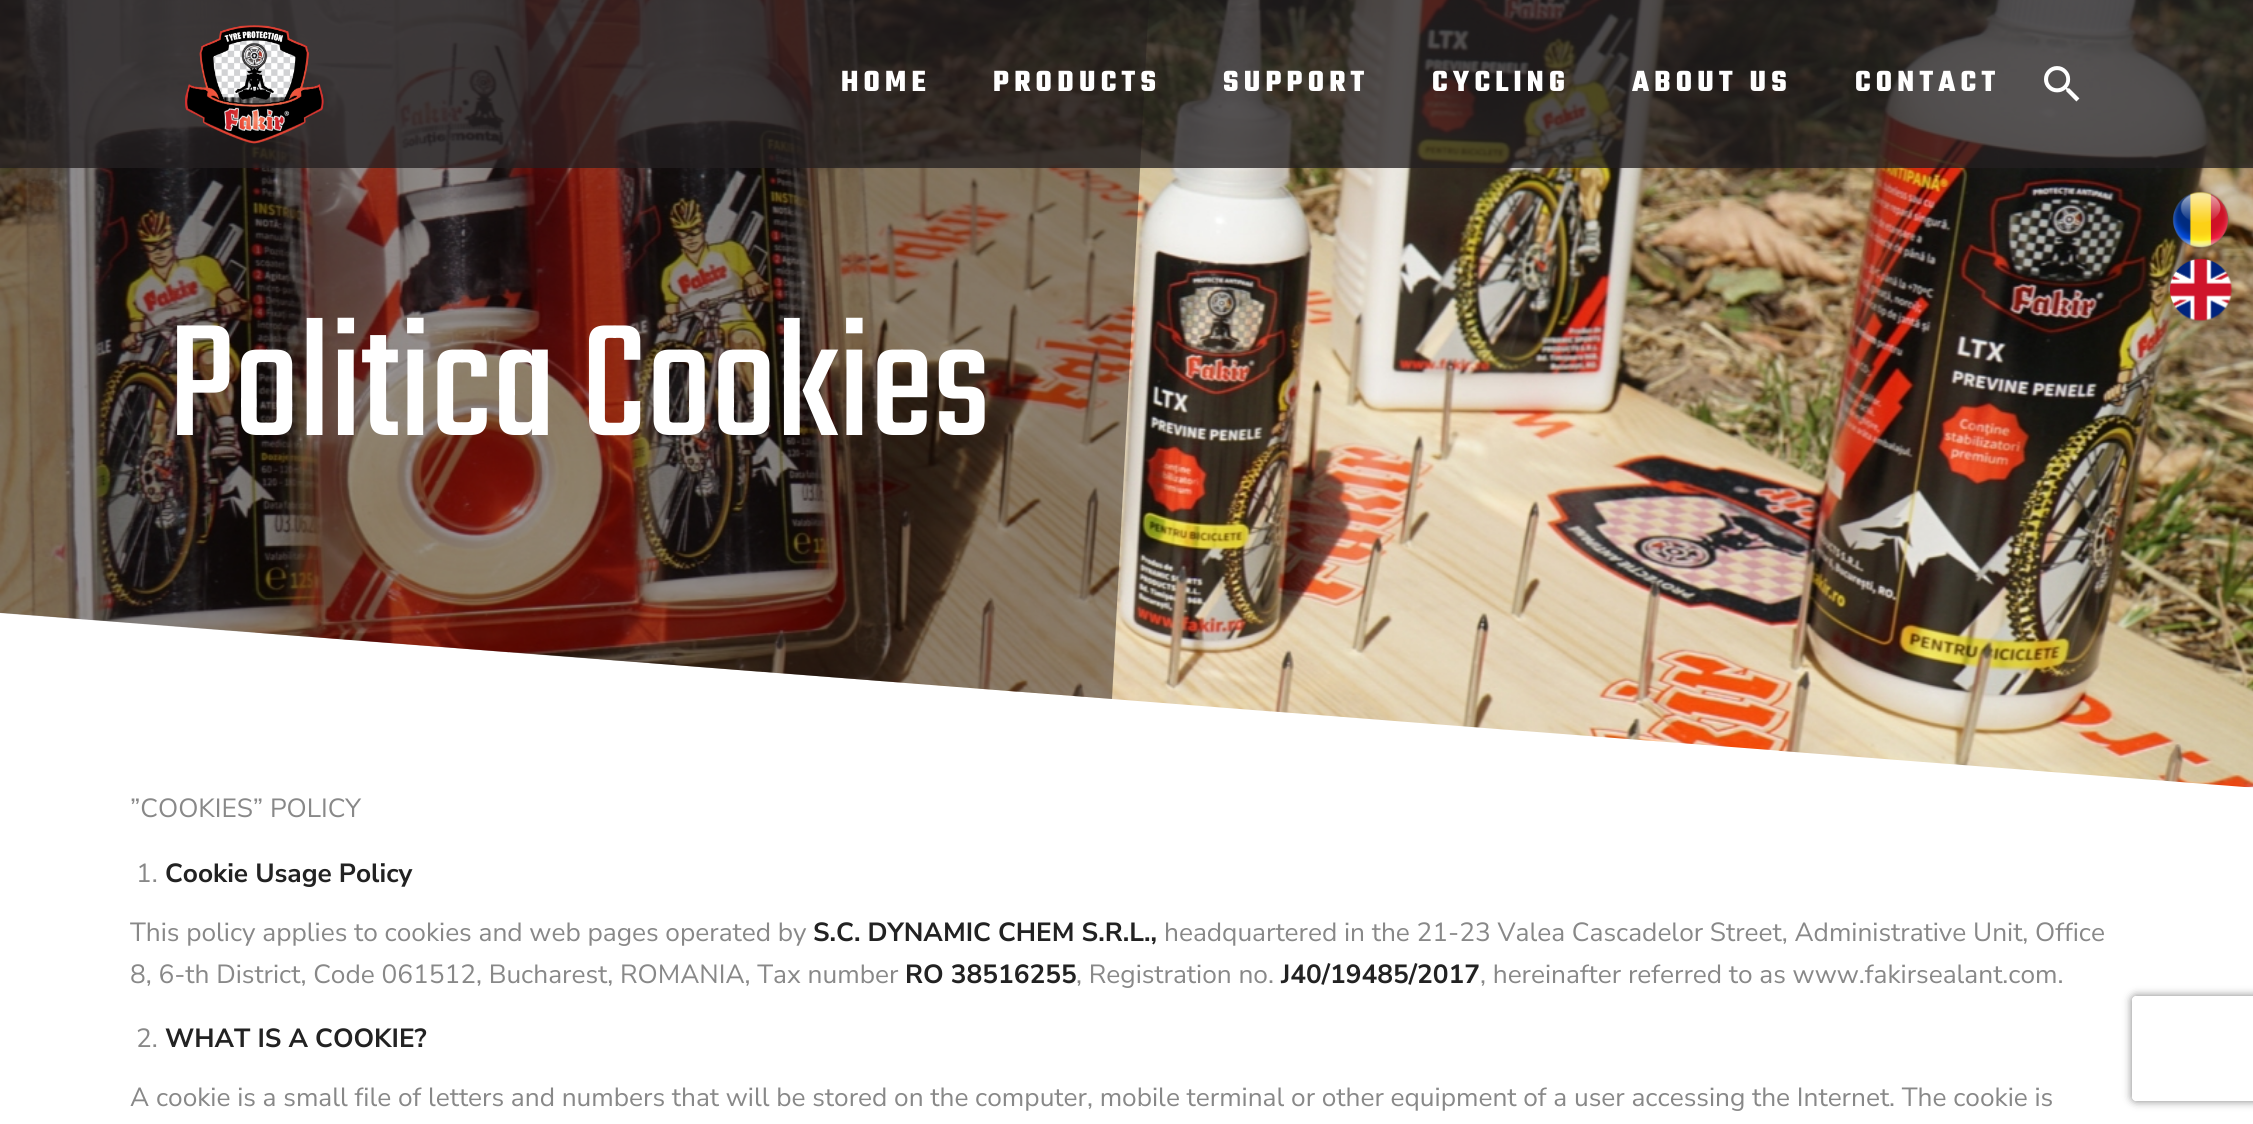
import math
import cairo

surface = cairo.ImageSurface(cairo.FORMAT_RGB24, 2253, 1124)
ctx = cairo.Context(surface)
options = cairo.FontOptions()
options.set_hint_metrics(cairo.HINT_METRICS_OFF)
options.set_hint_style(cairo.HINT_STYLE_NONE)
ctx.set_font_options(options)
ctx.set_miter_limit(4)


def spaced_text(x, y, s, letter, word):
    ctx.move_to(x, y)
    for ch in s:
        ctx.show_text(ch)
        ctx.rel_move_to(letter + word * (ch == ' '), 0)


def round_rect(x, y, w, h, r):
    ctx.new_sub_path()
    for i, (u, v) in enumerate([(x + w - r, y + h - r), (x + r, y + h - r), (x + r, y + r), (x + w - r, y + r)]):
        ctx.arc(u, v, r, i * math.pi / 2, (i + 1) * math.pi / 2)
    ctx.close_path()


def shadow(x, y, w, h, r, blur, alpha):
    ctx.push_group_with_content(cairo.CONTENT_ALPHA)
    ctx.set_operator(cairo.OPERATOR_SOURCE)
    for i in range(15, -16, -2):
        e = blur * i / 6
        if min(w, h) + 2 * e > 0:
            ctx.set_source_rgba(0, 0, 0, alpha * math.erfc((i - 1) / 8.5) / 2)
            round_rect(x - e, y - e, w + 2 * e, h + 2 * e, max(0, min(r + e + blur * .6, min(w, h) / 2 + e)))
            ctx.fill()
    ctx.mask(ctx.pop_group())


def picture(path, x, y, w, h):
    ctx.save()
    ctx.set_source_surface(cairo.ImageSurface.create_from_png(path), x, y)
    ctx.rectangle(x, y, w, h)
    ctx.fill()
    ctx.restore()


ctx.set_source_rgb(1, 1, 1)
ctx.paint()
picture("img3.png", 0, 0, 2253, 788)
ctx.set_source_rgba(0.047, 0, 0, 0.42)
ctx.new_path()
ctx.move_to(0, 0)
ctx.line_to(1149, 0)
ctx.line_to(1112, 699)
ctx.line_to(0, 613)
ctx.close_path()
ctx.fill()
ctx.set_source_rgba(0.137, 0.122, 0.125, 0.76)
ctx.rectangle(0, 0, 2253, 168)
ctx.fill()
picture("img1.png", 185, 25, 139, 119)
ctx.select_font_face("Teko", cairo.FONT_SLANT_NORMAL, cairo.FONT_WEIGHT_BOLD)
ctx.set_font_size(31.5)
ctx.set_source_rgb(1, 1, 1)
spaced_text(841, 91, "HOME", 5.25, 0)
spaced_text(993, 91, "PRODUCTS", 5.25, 0)
spaced_text(1223, 91, "SUPPORT", 5.25, 0)
spaced_text(1432, 91, "CYCLING", 5.25, 0)
spaced_text(1632, 91, "ABOUT US", 5.25, 0)
spaced_text(1855, 91, "CONTACT", 5.25, 0)
picture("img2.png", 2044, 66, 36, 36)
ctx.select_font_face("Teko")
ctx.set_font_size(175)
ctx.move_to(168, 435)
ctx.show_text("Politica Cookies")
ctx.select_font_face("Nunito Sans")
ctx.set_font_size(26.25)
ctx.set_source_rgb(0.533, 0.533, 0.533)
ctx.move_to(130, 817)
ctx.show_text("”COOKIES” POLICY")
ctx.move_to(136, 882)
ctx.show_text("1.")
ctx.select_font_face("Nunito Sans", cairo.FONT_SLANT_NORMAL, cairo.FONT_WEIGHT_BOLD)
ctx.set_source_rgb(0.133, 0.133, 0.133)
ctx.move_to(165, 882)
ctx.show_text("Cookie Usage Policy")
ctx.select_font_face("Nunito Sans")
ctx.set_source_rgb(0.533, 0.533, 0.533)
ctx.move_to(130, 941)
ctx.show_text("This policy applies to cookies and web pages operated by")
ctx.select_font_face("Nunito Sans", cairo.FONT_SLANT_NORMAL, cairo.FONT_WEIGHT_BOLD)
ctx.set_source_rgb(0.133, 0.133, 0.133)
ctx.move_to(813, 941)
ctx.show_text("S.C. DYNAMIC CHEM S.R.L.,")
ctx.select_font_face("Nunito Sans")
ctx.set_source_rgb(0.533, 0.533, 0.533)
ctx.move_to(1164, 941)
ctx.show_text("headquartered in the 21-23 Valea Cascadelor Street, Administrative Unit, Office")
ctx.move_to(130, 983)
ctx.show_text("8, 6-th District, Code 061512, Bucharest, ROMANIA, Tax number")
ctx.select_font_face("Nunito Sans", cairo.FONT_SLANT_NORMAL, cairo.FONT_WEIGHT_BOLD)
ctx.set_source_rgb(0.133, 0.133, 0.133)
ctx.move_to(905, 983)
ctx.show_text("RO 38516255")
ctx.select_font_face("Nunito Sans")
ctx.set_source_rgb(0.533, 0.533, 0.533)
ctx.move_to(1076, 983)
ctx.show_text(", Registration no.")
ctx.select_font_face("Nunito Sans", cairo.FONT_SLANT_NORMAL, cairo.FONT_WEIGHT_BOLD)
ctx.set_source_rgb(0.133, 0.133, 0.133)
ctx.move_to(1281, 983)
ctx.show_text("J40/19485/2017")
ctx.select_font_face("Nunito Sans")
ctx.set_source_rgb(0.533, 0.533, 0.533)
ctx.move_to(1480, 983)
ctx.show_text(", hereinafter referred to as www.fakirsealant.com.")
ctx.move_to(136, 1047)
ctx.show_text("2.")
ctx.select_font_face("Nunito Sans", cairo.FONT_SLANT_NORMAL, cairo.FONT_WEIGHT_BOLD)
ctx.set_source_rgb(0.133, 0.133, 0.133)
ctx.move_to(165, 1047)
ctx.show_text("WHAT IS A COOKIE?")
ctx.select_font_face("Nunito Sans")
ctx.set_source_rgb(0.533, 0.533, 0.533)
ctx.move_to(130, 1106)
ctx.show_text("A cookie is a small file of letters and numbers that will be stored on the computer, mobile terminal or other equipment of a user accessing the Internet. The cookie is")
picture("img4.png", 2172, 191, 58, 58)
picture("img5.png", 2170, 258, 62, 63)
ctx.save()
ctx.set_fill_rule(cairo.FILL_RULE_EVEN_ODD)
ctx.new_path()
ctx.move_to(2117, 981)
ctx.line_to(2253, 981)
ctx.line_to(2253, 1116)
ctx.line_to(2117, 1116)
ctx.close_path()
ctx.move_to(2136, 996)
ctx.line_to(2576, 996)
ctx.curve_to(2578, 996, 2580, 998, 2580, 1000)
ctx.line_to(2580, 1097)
ctx.curve_to(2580, 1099, 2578, 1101, 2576, 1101)
ctx.line_to(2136, 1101)
ctx.curve_to(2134, 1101, 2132, 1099, 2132, 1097)
ctx.line_to(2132, 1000)
ctx.curve_to(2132, 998, 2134, 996, 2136, 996)
ctx.close_path()
ctx.clip()
ctx.set_source_rgb(0.502, 0.502, 0.502)
shadow(2132, 996, 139, 105, 4, 4.5, 1)
ctx.restore()
surface.write_to_png("page.png")
